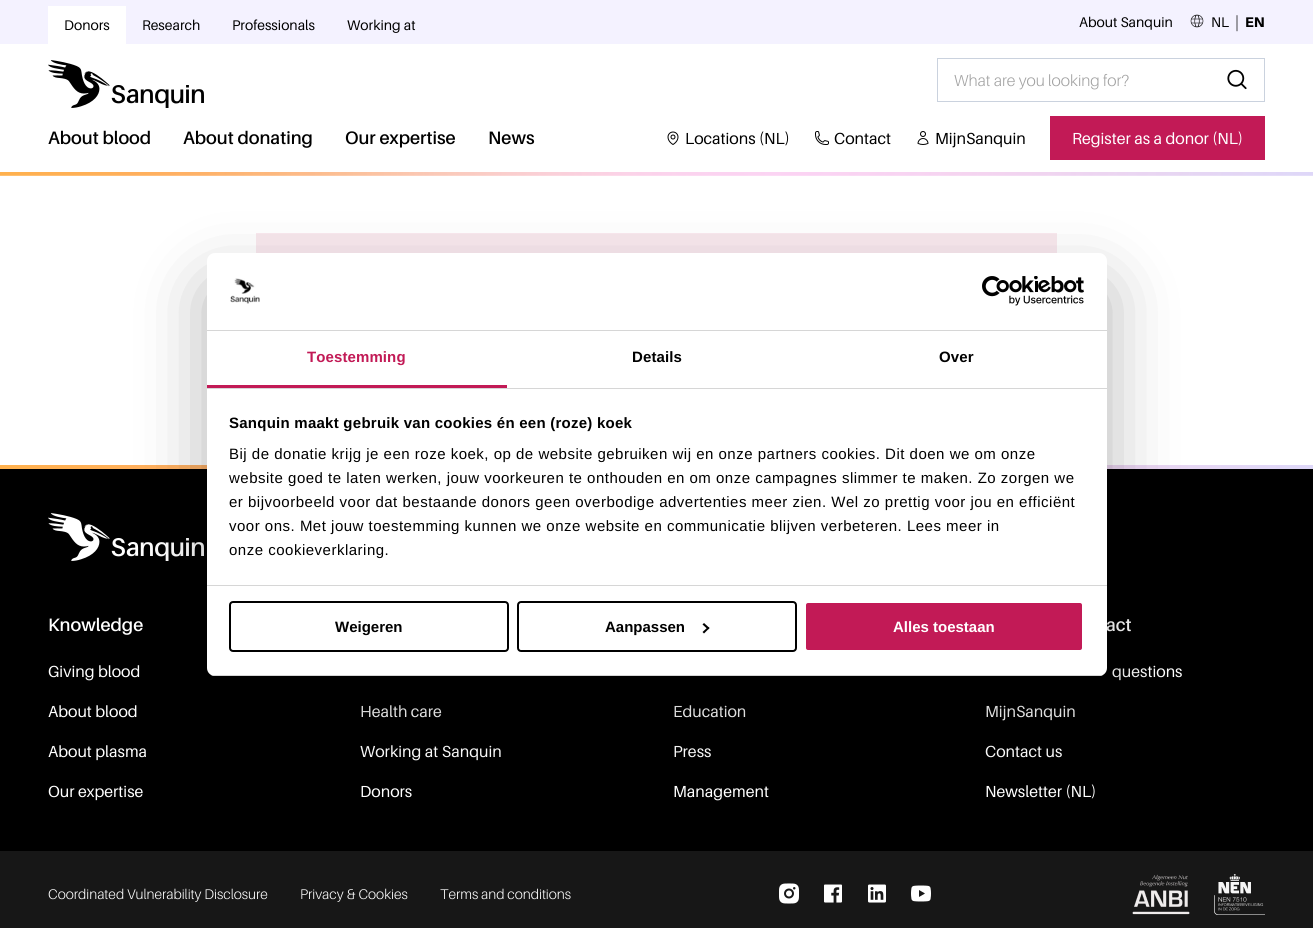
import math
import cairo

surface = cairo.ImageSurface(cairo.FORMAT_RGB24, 1313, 928)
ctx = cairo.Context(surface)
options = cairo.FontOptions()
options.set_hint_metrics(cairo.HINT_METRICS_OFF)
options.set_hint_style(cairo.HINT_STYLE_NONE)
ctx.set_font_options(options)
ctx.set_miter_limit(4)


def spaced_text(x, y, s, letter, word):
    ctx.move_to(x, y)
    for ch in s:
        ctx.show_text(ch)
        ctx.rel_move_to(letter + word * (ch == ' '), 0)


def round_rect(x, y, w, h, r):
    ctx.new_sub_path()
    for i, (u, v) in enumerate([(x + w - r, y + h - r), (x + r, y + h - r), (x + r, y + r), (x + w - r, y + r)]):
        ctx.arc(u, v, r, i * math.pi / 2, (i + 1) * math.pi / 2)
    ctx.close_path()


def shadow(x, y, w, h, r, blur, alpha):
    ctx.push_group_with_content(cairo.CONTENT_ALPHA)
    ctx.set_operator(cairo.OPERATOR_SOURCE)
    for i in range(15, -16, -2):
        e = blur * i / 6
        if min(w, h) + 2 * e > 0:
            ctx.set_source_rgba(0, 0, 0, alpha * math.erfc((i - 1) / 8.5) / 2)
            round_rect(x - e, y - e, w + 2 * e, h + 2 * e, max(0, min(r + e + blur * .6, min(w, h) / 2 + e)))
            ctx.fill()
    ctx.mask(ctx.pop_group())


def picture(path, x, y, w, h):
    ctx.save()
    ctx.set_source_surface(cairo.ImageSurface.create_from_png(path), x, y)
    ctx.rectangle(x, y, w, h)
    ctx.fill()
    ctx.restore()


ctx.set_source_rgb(1, 1, 1)
ctx.paint()
ctx.set_source_rgb(0.957, 0.949, 1)
ctx.rectangle(0, 0, 1313, 44)
ctx.fill()
ctx.set_source_rgb(1, 1, 1)
ctx.rectangle(48, 6, 78, 38)
ctx.fill()
ctx.select_font_face("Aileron")
ctx.set_font_size(14)
ctx.set_source_rgb(0, 0, 0)
ctx.move_to(64, 30)
ctx.show_text("Donors")
ctx.move_to(142, 30)
ctx.show_text("Research")
ctx.move_to(232, 30)
ctx.show_text("Professionals")
ctx.move_to(347, 30)
ctx.show_text("Working at")
ctx.move_to(1079, 27)
ctx.show_text("About Sanquin")
picture("img1.png", 1190, 14, 14, 14)
ctx.move_to(1211, 27)
ctx.show_text("NL")
ctx.select_font_face("Aileron Light")
ctx.set_font_size(16)
ctx.move_to(1235, 28)
ctx.show_text("|")
ctx.select_font_face("Aileron Black")
ctx.set_font_size(14)
ctx.move_to(1245, 27)
ctx.show_text("EN")
ctx.rectangle(937.5, 58.5, 327, 43)
ctx.set_source_rgb(0.792, 0.824, 0.871)
ctx.set_line_width(1)
ctx.stroke()
ctx.select_font_face("Aileron Light")
ctx.set_font_size(16)
ctx.set_source_rgb(0.635, 0.635, 0.635)
ctx.move_to(954, 86)
ctx.show_text("What are you looking for?")
picture("img2.png", 1227, 69, 20, 21)
ctx.select_font_face("Aileron SemiBold")
ctx.set_font_size(18)
ctx.set_source_rgb(0, 0, 0)
ctx.move_to(48, 144)
ctx.show_text("About blood")
ctx.move_to(183, 144)
ctx.show_text("About donating")
ctx.move_to(345, 144)
ctx.show_text("Our expertise")
ctx.move_to(488, 144)
ctx.show_text("News")
picture("img3.png", 667, 131, 12, 14)
ctx.select_font_face("Aileron")
ctx.set_font_size(16)
ctx.move_to(685, 144)
ctx.show_text("Locations (NL)")
picture("img4.png", 815, 131, 14, 14)
ctx.move_to(834, 144)
ctx.show_text("Contact")
picture("img5.png", 917, 131, 12, 14)
ctx.move_to(935, 144)
ctx.show_text("MijnSanquin")
ctx.set_source_rgb(0.761, 0.102, 0.337)
ctx.rectangle(1050, 116, 215, 44)
ctx.fill()
ctx.set_source_rgb(1, 1, 1)
ctx.move_to(1072, 144)
ctx.show_text("Register as a donor (NL)")
picture("img6.png", 48, 60, 156, 48)
picture("img7.png", 0, 172, 1313, 4)
ctx.set_source_rgb(0.976, 0.91, 0.933)
ctx.rectangle(256, 233, 801, 20)
ctx.fill()
ctx.set_source_rgb(0, 0, 0)
ctx.rectangle(0, 469, 1313, 382)
ctx.fill()
picture("img8.png", 0, 465, 1313, 4)
picture("img9.png", 48, 513, 156, 48)
ctx.select_font_face("Aileron SemiBold")
ctx.set_font_size(18)
ctx.set_source_rgb(1, 1, 1)
ctx.move_to(48, 631)
ctx.show_text("Knowledge")
ctx.select_font_face("Aileron")
ctx.set_font_size(16)
ctx.move_to(48, 677)
ctx.show_text("Giving blood")
ctx.move_to(48, 717)
ctx.show_text("About blood")
ctx.move_to(48, 757)
ctx.show_text("About plasma")
ctx.move_to(48, 797)
ctx.show_text("Our expertise")
ctx.move_to(360, 717)
ctx.show_text("Health care")
ctx.move_to(360, 757)
ctx.show_text("Working at Sanquin")
ctx.move_to(360, 797)
ctx.show_text("Donors")
ctx.move_to(673, 717)
ctx.show_text("Education")
ctx.move_to(673, 757)
ctx.show_text("Press")
ctx.move_to(673, 797)
ctx.show_text("Management")
ctx.select_font_face("Aileron SemiBold")
ctx.set_font_size(18)
ctx.move_to(1106, 631)
ctx.show_text("act")
ctx.select_font_face("Aileron")
ctx.set_font_size(16)
ctx.move_to(1112, 677)
ctx.show_text("questions")
ctx.move_to(985, 717)
ctx.show_text("MijnSanquin")
ctx.move_to(985, 757)
ctx.show_text("Contact us")
ctx.move_to(985, 797)
ctx.show_text("Newsletter (NL)")
ctx.set_source_rgb(0.09, 0.09, 0.09)
ctx.rectangle(0, 851, 1313, 77)
ctx.fill()
ctx.select_font_face("Aileron Light")
ctx.set_font_size(14)
ctx.set_source_rgb(1, 1, 1)
ctx.move_to(48, 899)
ctx.show_text("Coordinated Vulnerability Disclosure")
ctx.move_to(300, 899)
ctx.show_text("Privacy & Cookies")
ctx.move_to(440, 899)
ctx.show_text("Terms and conditions")
picture("img10.png", 779, 883, 20, 21)
picture("img11.png", 824, 884, 18, 19)
picture("img12.png", 868, 884, 18, 19)
picture("img13.png", 911, 885, 20, 17)
picture("img14.png", 1132, 874, 58, 41)
picture("img15.png", 1214, 874, 51, 41)
ctx.set_source_rgb(0, 0, 0)
shadow(207, 285, 900, 423, 8, 34, 0.3)
ctx.set_source_rgb(1, 1, 1)
round_rect(207, 253, 900, 423, 8)
ctx.fill()
ctx.set_source_rgb(0.839, 0.839, 0.839)
ctx.rectangle(207, 330, 900, 1)
ctx.fill()
picture("img16.png", 230, 278, 30, 26)
picture("img17.png", 982, 276, 102, 30)
ctx.rectangle(207, 388, 900, 1)
ctx.fill()
ctx.set_source_rgb(0.761, 0.102, 0.337)
ctx.rectangle(207, 385, 300, 3)
ctx.fill()
ctx.select_font_face("Liberation Sans", cairo.FONT_SLANT_NORMAL, cairo.FONT_WEIGHT_BOLD)
ctx.set_font_size(15)
spaced_text(307, 362, "Toestemming", 0.1, 0)
ctx.set_source_rgb(0, 0, 0)
spaced_text(632, 362, "Details", 0.1, 0)
spaced_text(939, 362, "Over", 0.1, 0)
ctx.set_source_rgb(0.839, 0.839, 0.839)
ctx.rectangle(207, 585, 900, 1)
ctx.fill()
ctx.set_source_rgb(0, 0, 0)
spaced_text(229, 428, "Sanquin maakt gebruik van cookies én een (roze) koek", 0.25, 0)
ctx.select_font_face("Liberation Sans")
spaced_text(229, 459, "Bij de donatie krijg je een roze koek, op de website gebruiken wij en onze partners cookies. Dit doen we om onze", 0.5, 0)
spaced_text(229, 483, "website goed te laten werken, jouw voorkeuren te onthouden en om onze campagnes slimmer te maken. Zo zorgen we", 0.5, 0)
spaced_text(229, 507, "er bijvoorbeeld voor dat bestaande donors geen overbodige advertenties meer zien. Wel zo prettig voor jou en efficiënt", 0.5, 0)
spaced_text(229, 531, "voor ons. Met jouw toestemming kunnen we onze website en communicatie blijven verbeteren. Lees meer in", 0.5, 0)
spaced_text(229, 555, "onze cookieverklaring.", 0.5, 0)
ctx.save()
round_rect(207, 253, 900, 423, 8)
ctx.clip()
ctx.set_source_rgb(0.839, 0.839, 0.839)
ctx.rectangle(207, 675, 900, 1)
ctx.fill()
ctx.restore()
round_rect(230, 602, 278, 49, 3)
ctx.set_line_width(2)
ctx.stroke()
ctx.select_font_face("Liberation Sans", cairo.FONT_SLANT_NORMAL, cairo.FONT_WEIGHT_BOLD)
ctx.move_to(335, 632)
ctx.show_text("Weigeren")
round_rect(518, 602, 278, 49, 3)
ctx.stroke()
ctx.move_to(605, 632)
ctx.show_text("Aanpassen")
ctx.new_path()
ctx.move_to(704, 623)
ctx.line_to(709.5, 628)
ctx.line_to(708, 629.5)
ctx.line_to(702.5, 624.5)
ctx.close_path()
ctx.fill()
ctx.new_path()
ctx.move_to(708, 627)
ctx.line_to(709.5, 628)
ctx.line_to(704, 633.5)
ctx.line_to(702.5, 632)
ctx.close_path()
ctx.fill()
ctx.set_source_rgb(0.761, 0.102, 0.337)
round_rect(805, 602, 278, 49, 3)
ctx.fill_preserve()
ctx.set_source_rgb(1, 1, 1)
ctx.stroke()
ctx.move_to(893, 632)
ctx.show_text("Alles toestaan")
surface.write_to_png("page.png")
